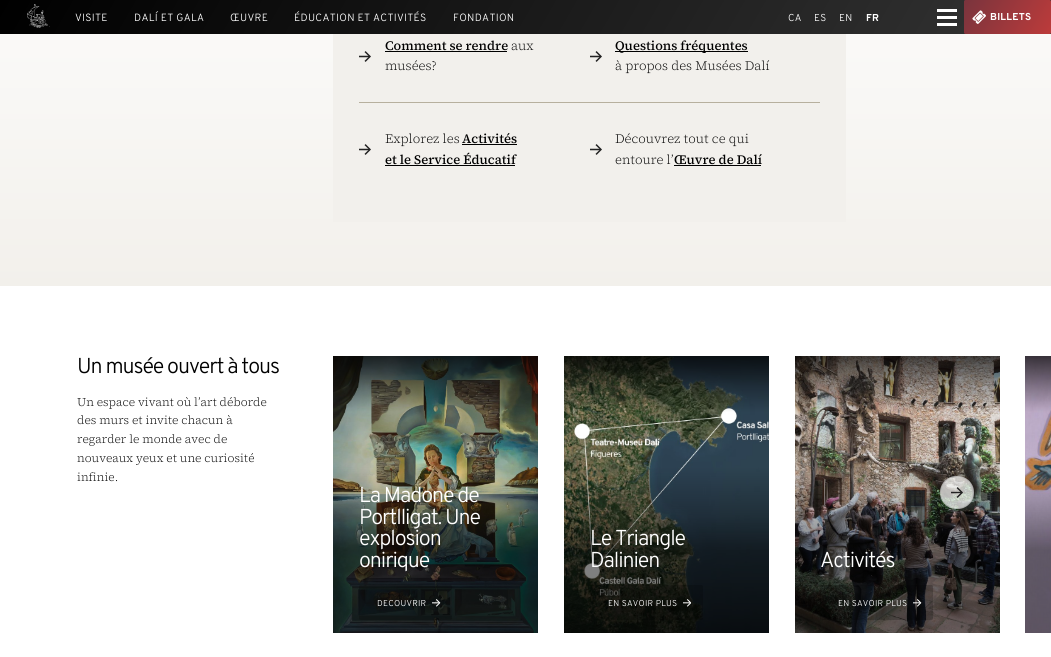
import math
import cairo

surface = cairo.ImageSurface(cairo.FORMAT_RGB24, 1051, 657)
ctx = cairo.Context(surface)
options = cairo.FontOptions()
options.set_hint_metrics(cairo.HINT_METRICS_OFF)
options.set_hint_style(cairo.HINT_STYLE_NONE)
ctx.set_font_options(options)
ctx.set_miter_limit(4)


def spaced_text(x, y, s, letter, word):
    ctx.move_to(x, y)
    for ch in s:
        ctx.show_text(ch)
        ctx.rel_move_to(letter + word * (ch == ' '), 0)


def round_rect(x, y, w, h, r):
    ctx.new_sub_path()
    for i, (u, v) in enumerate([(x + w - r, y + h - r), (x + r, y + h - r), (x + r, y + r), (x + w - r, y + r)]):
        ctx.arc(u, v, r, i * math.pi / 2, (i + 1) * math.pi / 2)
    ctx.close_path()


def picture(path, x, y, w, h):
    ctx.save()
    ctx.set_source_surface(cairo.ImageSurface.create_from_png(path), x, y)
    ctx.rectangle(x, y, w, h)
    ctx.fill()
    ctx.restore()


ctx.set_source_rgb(1, 1, 1)
ctx.paint()
gradient = cairo.LinearGradient(124, -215, 927, 249)
gradient.add_color_stop_rgba(0, 0, 0, 0, 1)
gradient.add_color_stop_rgba(1, 0.2, 0.2, 0.2, 1)
ctx.set_source(gradient)
ctx.rectangle(0, 0, 1051, 34)
ctx.fill()
picture("img1.png", 27, 4, 23, 24)
ctx.select_font_face("Overpass Light")
ctx.set_font_size(10.5)
ctx.set_source_rgb(1, 1, 1)
spaced_text(75, 21, "VISITE", 0.3, 0)
spaced_text(134, 21, "DALÍ ET GALA", 0.3, 0)
spaced_text(230, 21, "ŒUVRE", 0.3, 0)
spaced_text(294, 21, "ÉDUCATION ET ACTIVITÉS", 0.3, 0)
spaced_text(453, 21, "FONDATION", 0.3, 0)
ctx.set_font_size(10)
spaced_text(788, 21, "CA", 0.25, 0)
spaced_text(814, 21, "ES", 0.25, 0)
spaced_text(839, 21, "EN", 0.25, 0)
ctx.select_font_face("Overpass", cairo.FONT_SLANT_NORMAL, cairo.FONT_WEIGHT_BOLD)
spaced_text(866, 21, "FR", 0.25, 0)
ctx.rectangle(937, 16, 20, 3)
ctx.fill()
ctx.rectangle(937, 9, 20, 3)
ctx.fill()
ctx.rectangle(937, 23, 20, 3)
ctx.fill()
gradient = cairo.LinearGradient(968, -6.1, 1047, 40)
gradient.add_color_stop_rgba(0, 0.478, 0.204, 0.239, 1)
gradient.add_color_stop_rgba(1, 0.737, 0.231, 0.231, 1)
ctx.set_source(gradient)
round_rect(964, 0, 87, 34, 1.5)
ctx.fill()
picture("img2.png", 972, 10, 14, 14)
ctx.set_source_rgb(1, 1, 1)
spaced_text(990, 20, "BILLETS", 0.25, 0)
gradient = cairo.LinearGradient(526, -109, 526, 286)
gradient.add_color_stop_rgba(0, 1, 1, 1, 1)
gradient.add_color_stop_rgba(1, 0.949, 0.941, 0.922, 1)
ctx.set_source(gradient)
ctx.rectangle(0, 34, 1051, 252)
ctx.fill()
ctx.set_source_rgb(0.949, 0.941, 0.922)
ctx.rectangle(333, 34, 513, 188)
ctx.fill()
picture("img3.png", 359, 51, 12, 11)
ctx.set_source_rgb(0.718, 0.69, 0.62)
ctx.rectangle(359, 102, 461, 1)
ctx.fill()
ctx.select_font_face("Source Serif 4 Medium")
ctx.set_font_size(12.9)
ctx.set_source_rgb(0, 0, 0)
ctx.move_to(385, 50)
ctx.show_text("Comment se rendre")
ctx.rectangle(385, 51, 122, 1)
ctx.fill()
ctx.select_font_face("Source Serif 4 Light")
ctx.move_to(511, 50)
ctx.show_text("aux")
ctx.move_to(385, 70)
ctx.show_text("musées?")
picture("img3.png", 590, 51, 12, 11)
ctx.rectangle(615, 51, 133, 1)
ctx.fill()
ctx.select_font_face("Source Serif 4 Medium")
ctx.move_to(615, 50)
ctx.show_text("Questions fréquentes")
ctx.select_font_face("Source Serif 4 Light")
ctx.move_to(615, 70)
ctx.show_text("à propos des Musées Dalí")
picture("img3.png", 359, 144, 12, 11)
ctx.move_to(385, 143)
ctx.show_text("Explorez les")
ctx.select_font_face("Source Serif 4 Medium")
ctx.move_to(462, 143)
ctx.show_text("Activités")
ctx.rectangle(462, 144, 55, 1)
ctx.fill()
ctx.move_to(385, 164)
ctx.show_text("et le Service Éducatif")
ctx.rectangle(385, 165, 130, 1)
ctx.fill()
picture("img3.png", 590, 144, 12, 11)
ctx.select_font_face("Source Serif 4 Light")
ctx.move_to(615, 143)
ctx.show_text("Découvrez tout ce qui")
ctx.move_to(615, 164)
ctx.show_text("entoure l’")
ctx.select_font_face("Source Serif 4 Medium")
ctx.move_to(674, 164)
ctx.show_text("Œuvre de Dalí")
ctx.rectangle(674, 165, 87, 1)
ctx.fill()
ctx.select_font_face("Overpass Light")
ctx.set_font_size(21.6)
spaced_text(77, 373, "Un musée ouvert à tous", -1.1, 0)
ctx.select_font_face("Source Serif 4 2 Light")
ctx.set_font_size(11.75)
ctx.move_to(77, 406)
ctx.show_text("Un espace vivant où l’art déborde")
ctx.move_to(77, 424)
ctx.show_text("des murs et invite chacun à")
ctx.move_to(77, 443)
ctx.show_text("regarder le monde avec de")
ctx.move_to(77, 462)
ctx.show_text("nouveaux yeux et une curiosité")
ctx.move_to(77, 481)
ctx.show_text("infinie.")
picture("img4.png", 1025, 356, 26, 277)
picture("img5.png", 333, 356, 205, 277)
ctx.select_font_face("Overpass Light")
ctx.set_font_size(21.6)
ctx.set_source_rgb(1, 1, 1)
spaced_text(359, 502, "La Madone de", -1.1, 0)
spaced_text(359, 524, "Portlligat. Une", -1.1, 0)
spaced_text(359, 545, "explosion", -1.1, 0)
spaced_text(359, 567, "onirique", -1.1, 0)
ctx.set_source_rgba(0, 0, 0, 0.2)
round_rect(359, 585, 93, 35, 1.5)
ctx.fill()
picture("img6.png", 432, 599, 9, 8)
ctx.set_font_size(8.5)
ctx.set_source_rgb(1, 1, 1)
spaced_text(377, 606, "DECOUVRIR", 0.25, 0)
picture("img7.png", 564, 356, 205, 277)
ctx.set_font_size(21.6)
spaced_text(590, 545, "Le Triangle", -1.1, 0)
spaced_text(590, 567, "Dalinien", -1.1, 0)
ctx.set_source_rgba(0, 0, 0, 0.2)
round_rect(590, 585, 113, 35, 1.5)
ctx.fill()
picture("img8.png", 683, 599, 8, 8)
ctx.set_font_size(8.5)
ctx.set_source_rgb(1, 1, 1)
spaced_text(608, 606, "EN SAVOIR PLUS", 0.25, 0)
picture("img9.png", 795, 356, 205, 277)
ctx.set_font_size(21.6)
spaced_text(820, 567, "Activités", -1.1, 0)
ctx.set_source_rgba(0, 0, 0, 0.2)
round_rect(820, 585, 113, 35, 1.5)
ctx.fill()
picture("img10.png", 913, 599, 9, 8)
ctx.set_font_size(8.5)
ctx.set_source_rgb(1, 1, 1)
spaced_text(838, 606, "EN SAVOIR PLUS", 0.25, 0)
ctx.set_source_rgba(1, 1, 1, 0.7)
round_rect(940, 476, 34, 33, 16.5)
ctx.fill()
picture("img11.png", 951, 487, 12, 11)
round_rect(940.5, 476.5, 33, 32, 16)
ctx.set_source_rgba(0, 0, 0, 0.1)
ctx.set_line_width(1)
ctx.stroke()
surface.write_to_png("page.png")
